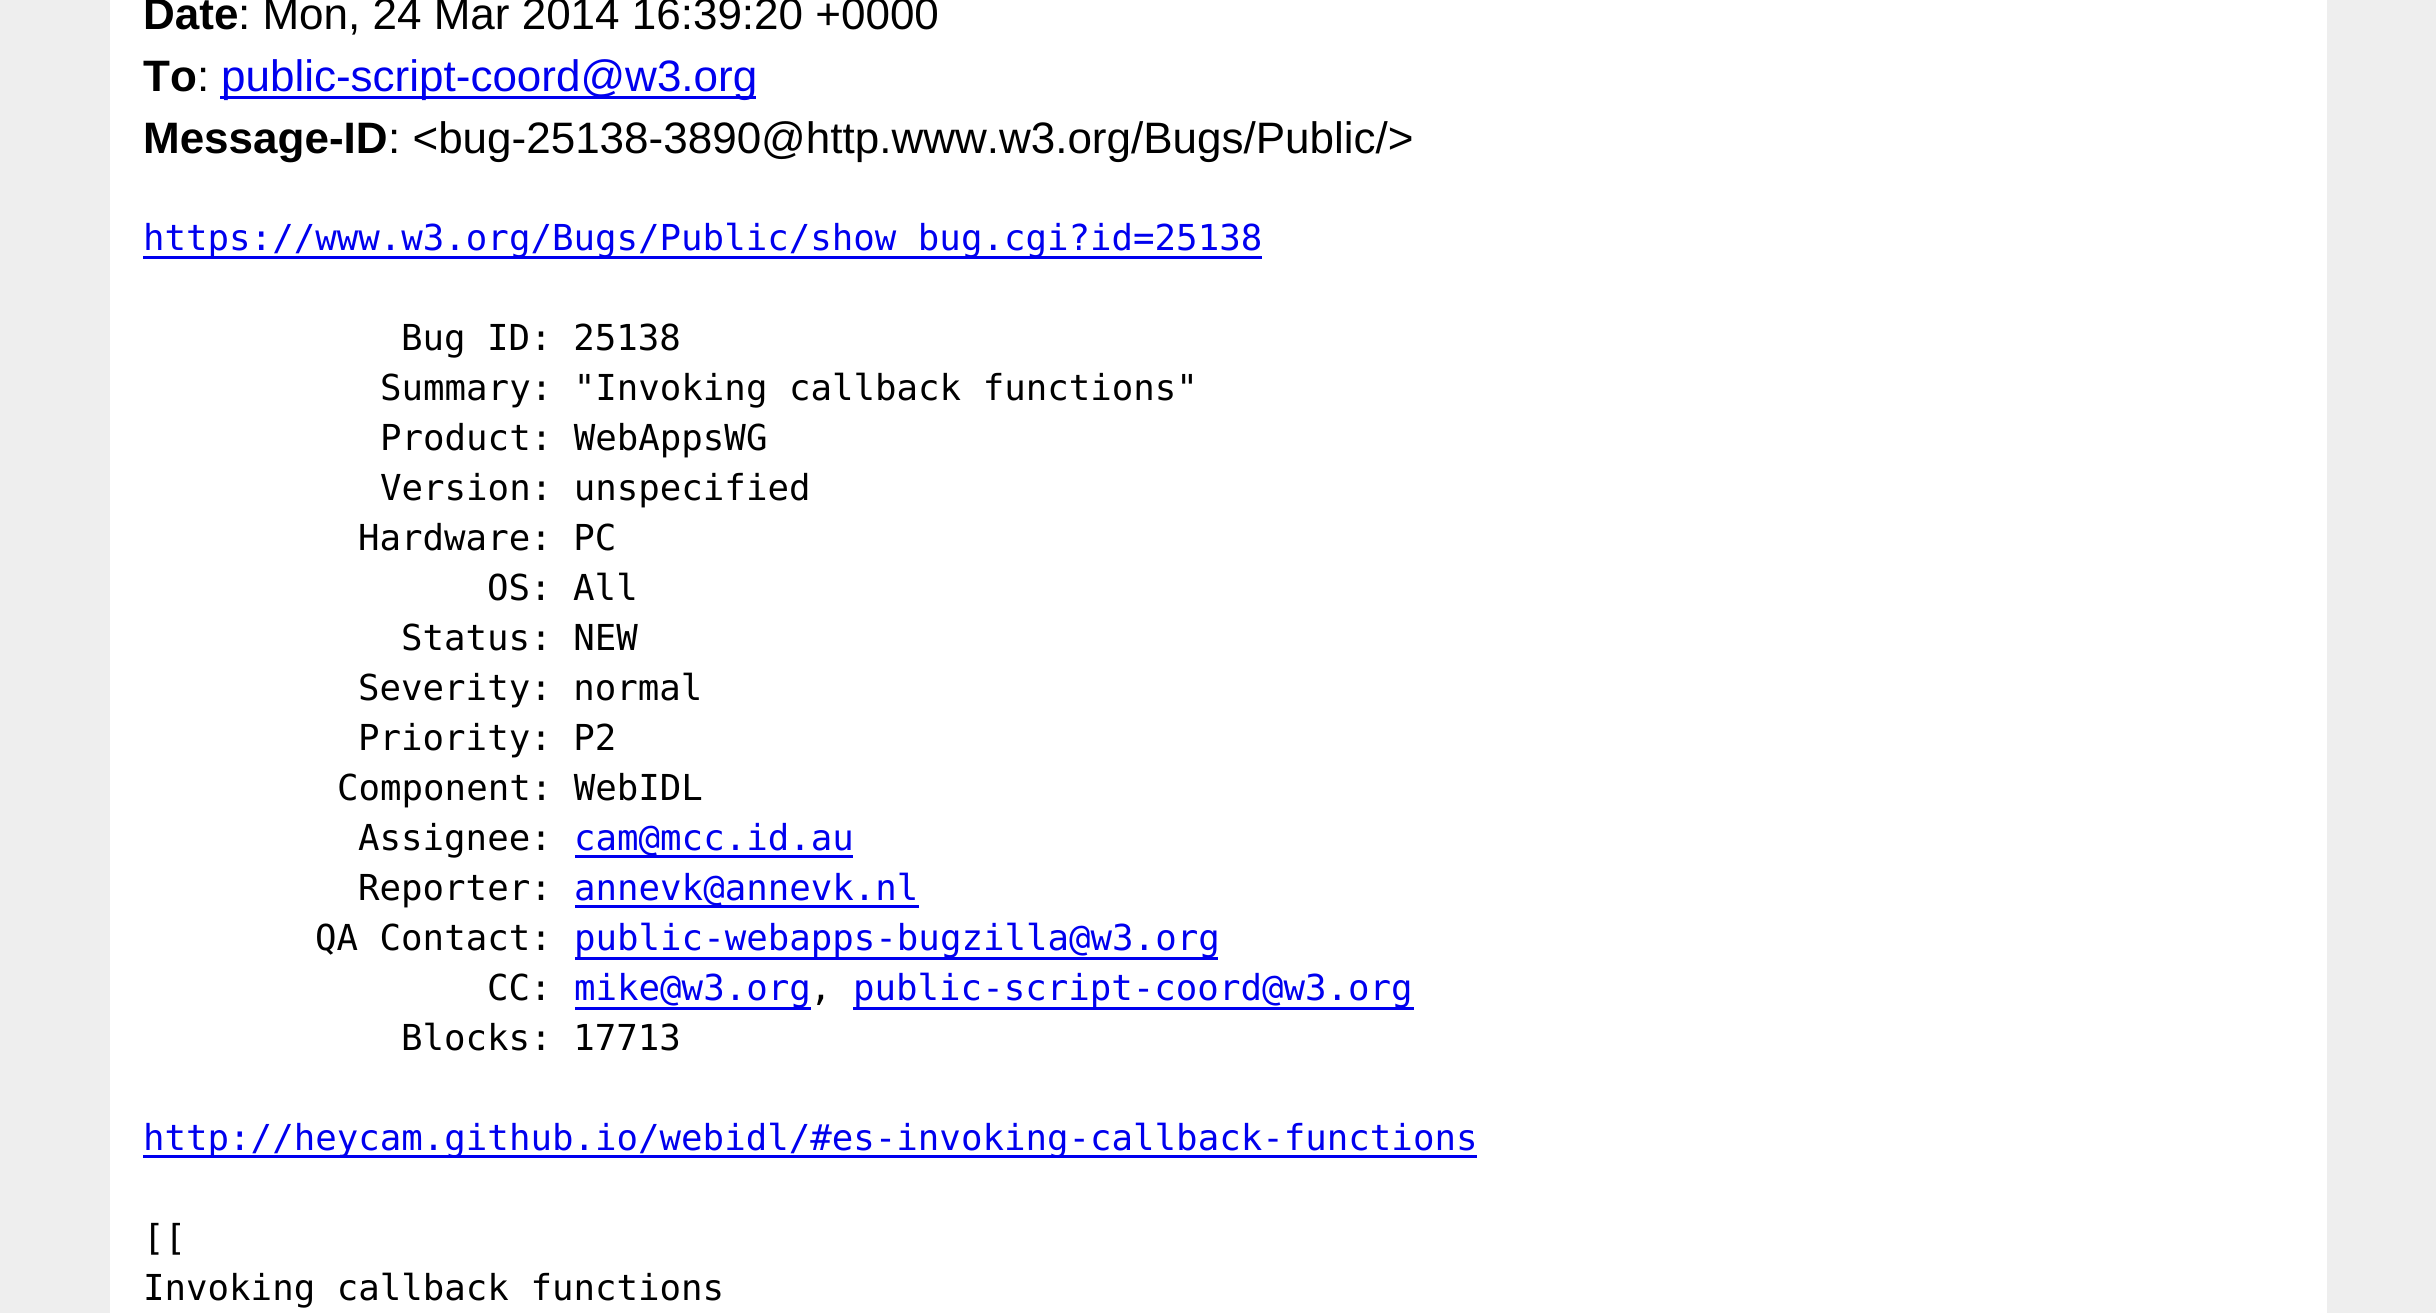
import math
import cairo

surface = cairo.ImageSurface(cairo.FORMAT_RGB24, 2436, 1313)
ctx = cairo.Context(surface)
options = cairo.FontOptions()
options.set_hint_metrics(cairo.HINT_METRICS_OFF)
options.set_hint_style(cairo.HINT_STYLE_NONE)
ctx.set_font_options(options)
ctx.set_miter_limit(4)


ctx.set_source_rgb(0.933, 0.933, 0.933)
ctx.paint()
ctx.set_source_rgb(1, 1, 1)
ctx.rectangle(110, 0, 2217, 1313)
ctx.fill()
ctx.select_font_face("Liberation Sans", cairo.FONT_SLANT_NORMAL, cairo.FONT_WEIGHT_BOLD)
ctx.set_font_size(44)
ctx.set_source_rgb(0, 0, 0)
ctx.move_to(143, 29)
ctx.show_text("Date")
ctx.select_font_face("Liberation Sans")
ctx.move_to(238, 29)
ctx.show_text(": Mon, 24 Mar 2014 16:39:20 +0000")
ctx.select_font_face("Liberation Sans", cairo.FONT_SLANT_NORMAL, cairo.FONT_WEIGHT_BOLD)
ctx.move_to(143, 91)
ctx.show_text("To")
ctx.select_font_face("Liberation Sans")
ctx.move_to(197, 91)
ctx.show_text(":")
ctx.set_source_rgb(0, 0, 0.933)
ctx.rectangle(220, 96, 536, 3)
ctx.fill()
ctx.move_to(221, 91)
ctx.show_text("public-script-coord@w3.org")
ctx.select_font_face("Liberation Sans", cairo.FONT_SLANT_NORMAL, cairo.FONT_WEIGHT_BOLD)
ctx.set_source_rgb(0, 0, 0)
ctx.move_to(143, 153)
ctx.show_text("Message-ID")
ctx.select_font_face("Liberation Sans")
ctx.move_to(388, 153)
ctx.show_text(": <bug-25138-3890@http.www.w3.org/Bugs/Public/>")
ctx.set_source_rgb(0, 0, 0.933)
ctx.rectangle(143, 256, 1119, 3)
ctx.fill()
ctx.select_font_face("DejaVu Sans Mono")
ctx.set_font_size(35.75)
ctx.move_to(143, 250)
ctx.show_text("https://www.w3.org/Bugs/Public/show_bug.cgi?id=25138")
ctx.set_source_rgb(0, 0, 0)
ctx.move_to(401, 350)
ctx.show_text("Bug ID: 25138")
ctx.move_to(380, 400)
ctx.show_text("Summary: \"Invoking callback functions\"")
ctx.move_to(380, 450)
ctx.show_text("Product: WebAppsWG")
ctx.move_to(380, 500)
ctx.show_text("Version: unspecified")
ctx.move_to(358, 550)
ctx.show_text("Hardware: PC")
ctx.move_to(487, 600)
ctx.show_text("OS: All")
ctx.move_to(401, 650)
ctx.show_text("Status: NEW")
ctx.move_to(358, 700)
ctx.show_text("Severity: normal")
ctx.move_to(358, 750)
ctx.show_text("Priority: P2")
ctx.move_to(337, 800)
ctx.show_text("Component: WebIDL")
ctx.move_to(358, 850)
ctx.show_text("Assignee:")
ctx.set_source_rgb(0, 0, 0.933)
ctx.rectangle(575, 855, 278, 3)
ctx.fill()
ctx.move_to(574, 850)
ctx.show_text("cam@mcc.id.au")
ctx.set_source_rgb(0, 0, 0)
ctx.move_to(358, 900)
ctx.show_text("Reporter:")
ctx.set_source_rgb(0, 0, 0.933)
ctx.rectangle(575, 905, 344, 3)
ctx.fill()
ctx.move_to(574, 900)
ctx.show_text("annevk@annevk.nl")
ctx.set_source_rgb(0, 0, 0)
ctx.move_to(315, 950)
ctx.show_text("QA Contact:")
ctx.set_source_rgb(0, 0, 0.933)
ctx.rectangle(575, 957, 643, 3)
ctx.fill()
ctx.move_to(574, 950)
ctx.show_text("public-webapps-bugzilla@w3.org")
ctx.set_source_rgb(0, 0, 0)
ctx.move_to(487, 1000)
ctx.show_text("CC:")
ctx.set_source_rgb(0, 0, 0.933)
ctx.rectangle(575, 1007, 236, 3)
ctx.fill()
ctx.move_to(574, 1000)
ctx.show_text("mike@w3.org")
ctx.set_source_rgb(0, 0, 0)
ctx.move_to(810, 1000)
ctx.show_text(",")
ctx.set_source_rgb(0, 0, 0.933)
ctx.rectangle(853, 1007, 561, 3)
ctx.fill()
ctx.move_to(853, 1000)
ctx.show_text("public-script-coord@w3.org")
ctx.set_source_rgb(0, 0, 0)
ctx.move_to(401, 1050)
ctx.show_text("Blocks: 17713")
ctx.set_source_rgb(0, 0, 0.933)
ctx.rectangle(143, 1155, 1334, 3)
ctx.fill()
ctx.move_to(143, 1150)
ctx.show_text("http://heycam.github.io/webidl/#es-invoking-callback-functions")
ctx.set_source_rgb(0, 0, 0)
ctx.move_to(143, 1250)
ctx.show_text("[[")
ctx.move_to(143, 1300)
ctx.show_text("Invoking callback functions")
surface.write_to_png("page.png")
